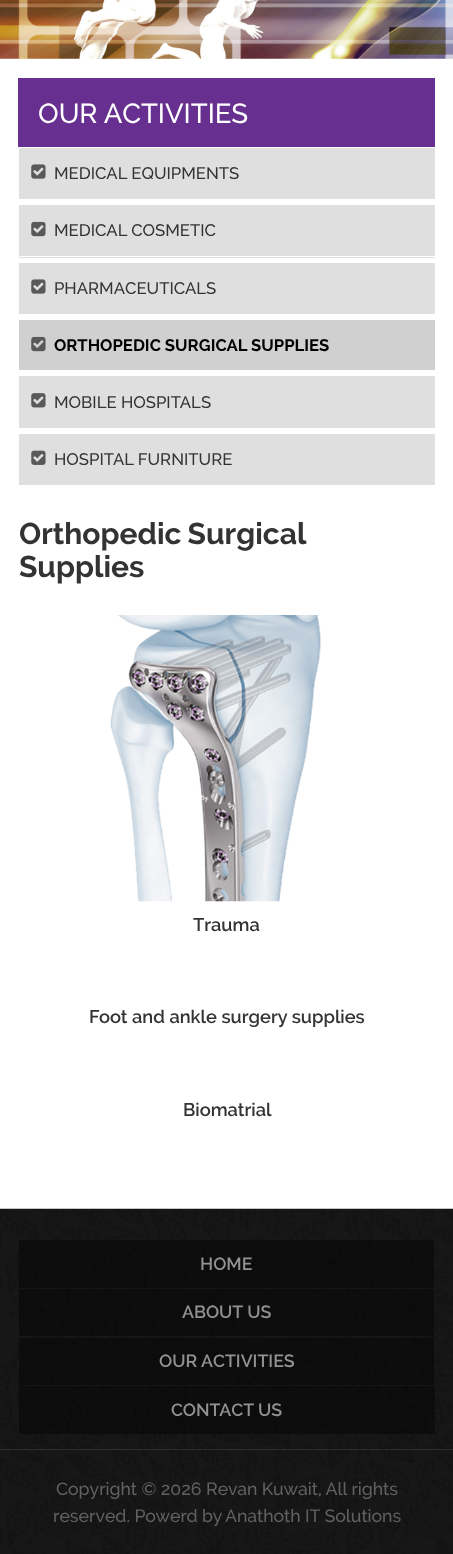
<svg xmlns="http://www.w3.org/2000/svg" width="453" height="1554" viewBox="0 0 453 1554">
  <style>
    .t1 { font: 500 27.5px Raleway; fill: #fff; }
    .t2 { font: 500 16.7px Raleway; fill: #333; }
    .t3 { font: bold 16.7px Raleway; fill: #000; }
    .t4 { font: bold 30px Raleway; fill: #333; }
    .t5 { font: 600 18.3px Raleway; fill: #333; }
    .t6 { font: 600 17.7px Raleway; fill: #939292; }
    .t7 { font: 500 17.7px Raleway; fill: #616161; }
  </style>
  <rect width="100%" height="100%" fill="#fff"/>
  <image x="0" y="0" width="453" height="59" href="images/1.png"/>
  <rect x="18" y="78" width="417" height="69" fill="#673090"/>
  <text x="38" y="123" class="t1">OUR ACTIVITIES</text>
  <rect x="19" y="148" width="416" height="51" fill="#e0dfdf"/>
  <image x="31" y="164" width="15" height="15" href="images/2.png"/>
  <text x="54" y="179" class="t2">MEDICAL EQUIPMENTS</text>
  <rect x="19" y="205" width="416" height="53" fill="#e0dfdf"/>
  <rect x="19" y="256" width="416" height="1" fill="#fff"/>
  <image x="31" y="221" width="15" height="16" href="images/3.png"/>
  <text x="54" y="236" class="t2">MEDICAL COSMETIC</text>
  <rect x="19" y="263" width="416" height="51" fill="#e0dfdf"/>
  <image x="31" y="279" width="15" height="15" href="images/2.png"/>
  <text x="54" y="294" class="t2">PHARMACEUTICALS</text>
  <rect x="19" y="320" width="416" height="50" fill="#d0d0d0"/>
  <image x="31" y="336" width="15" height="16" href="images/4.png"/>
  <text x="54" y="351" class="t3">ORTHOPEDIC SURGICAL SUPPLIES</text>
  <rect x="19" y="376" width="416" height="52" fill="#e0dfdf"/>
  <image x="31" y="393" width="15" height="15" href="images/5.png"/>
  <text x="54" y="408" class="t2">MOBILE HOSPITALS</text>
  <rect x="19" y="434" width="416" height="51" fill="#e0dfdf"/>
  <image x="31" y="450" width="15" height="15" href="images/6.png"/>
  <text x="54" y="465" class="t2">HOSPITAL FURNITURE</text>
  <text x="19" y="544" word-spacing="-1" class="t4">Orthopedic Surgical</text>
  <text x="19" y="577" class="t4">Supplies</text>
  <image x="110" y="615" width="211" height="287" href="images/7.png"/>
  <text x="193" y="931" class="t5">Trauma</text>
  <text x="89" y="1023" class="t5">Foot and ankle surgery supplies</text>
  <text x="183" y="1116" class="t5">Biomatrial</text>
  <image x="0" y="1208" width="453" height="346" href="images/8.png"/>
  <rect x="19" y="1240" width="415" height="48" fill="#00000066"/>
  <text x="200" y="1270" class="t6">HOME</text>
  <rect x="19" y="1289" width="415" height="47" fill="#00000066"/>
  <text x="182" y="1318" class="t6">ABOUT US</text>
  <rect x="19" y="1338" width="415" height="47" fill="#00000066"/>
  <text x="159" y="1367" class="t6">OUR ACTIVITIES</text>
  <rect x="19" y="1386" width="416" height="48" fill="#00000066"/>
  <text x="171" y="1416" class="t6">CONTACT US</text>
  <rect x="0" y="1449" width="453" height="1" fill="#ffffff1a"/>
  <text x="56" y="1495" class="t7">Copyright © 2026 Revan Kuwait, All rights</text>
  <text x="53" y="1522" class="t7">reserved. Powerd by</text>
  <text x="225" y="1522" class="t7">Anathoth IT Solutions</text>
</svg>
